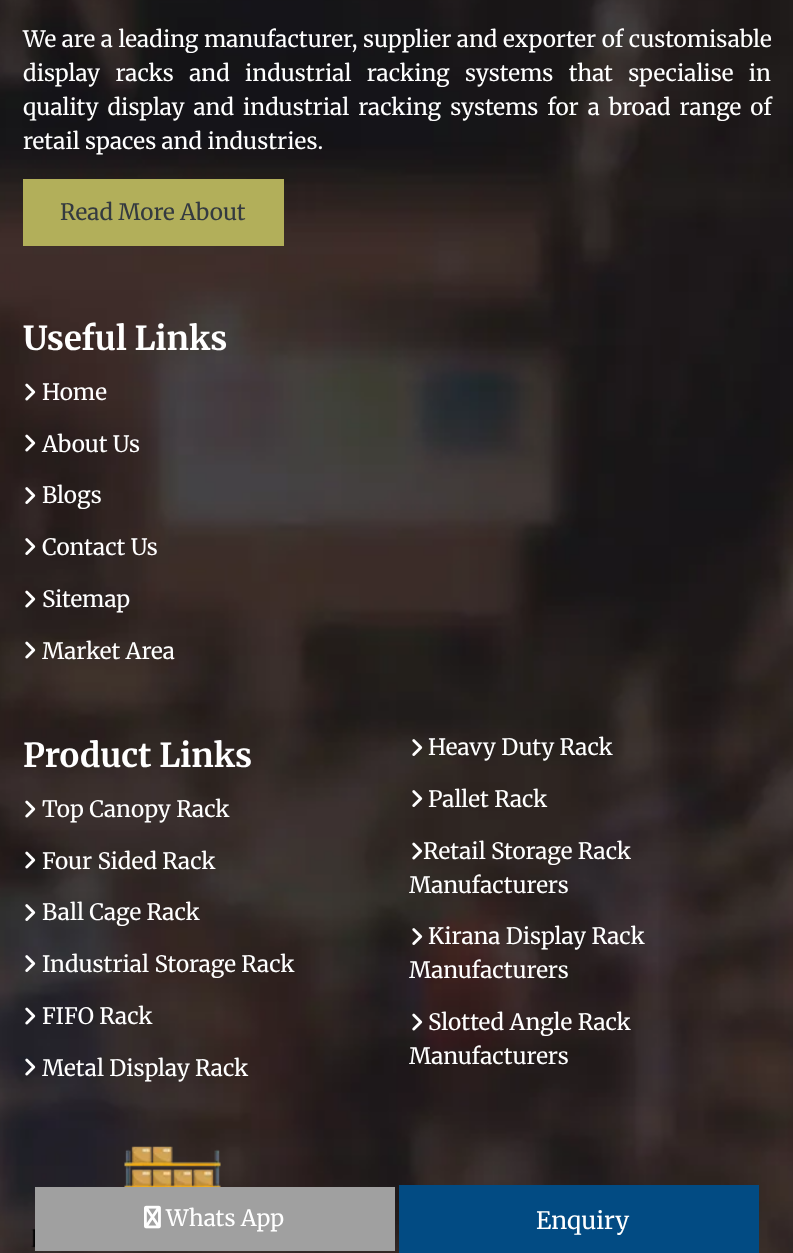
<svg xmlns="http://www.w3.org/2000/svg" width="793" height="1253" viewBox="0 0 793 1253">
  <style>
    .t1 { font: 22.5px Merriweather; fill: #fff; }
    .t2 { font: 22.5px Merriweather; fill: #343a40; }
    .t3 { font: bold 33px Merriweather; fill: #fff; }
    .t4 { font: 24px Merriweather; fill: #fff; }
  </style>
  <rect width="100%" height="100%" fill="#fff"/>
  <image x="0" y="0" width="793" height="1253" href="images/1.png"/>
  <text x="23" y="47" word-spacing="0.25" class="t1">We are a leading manufacturer, supplier and exporter of customisable</text>
  <text x="23" y="81" word-spacing="10" class="t1">display racks and industrial racking systems that specialise in</text>
  <text x="23" y="115" word-spacing="3.6" class="t1">quality display and industrial racking systems for a broad range of</text>
  <text x="23" y="149" class="t1">retail spaces and industries.</text>
  <rect x="23" y="179" width="261" height="67" fill="#b2af5a"/>
  <text x="60" y="220" class="t2">Read More About</text>
  <text x="23" y="350" class="t3">Useful Links</text>
  <image x="25" y="383" width="11" height="18" href="images/2.png"/>
  <text x="42" y="400" class="t1">Home</text>
  <image x="25" y="434" width="11" height="18" href="images/3.png"/>
  <text x="42" y="452" class="t1">About Us</text>
  <image x="25" y="487" width="11" height="17" href="images/4.png"/>
  <text x="42" y="503" class="t1">Blogs</text>
  <image x="25" y="538" width="11" height="17" href="images/5.png"/>
  <text x="42" y="555" class="t1">Contact Us</text>
  <image x="25" y="590" width="11" height="18" href="images/6.png"/>
  <text x="42" y="607" class="t1">Sitemap</text>
  <image x="25" y="641" width="11" height="18" href="images/7.png"/>
  <text x="42" y="659" class="t1">Market Area</text>
  <image x="412" y="739" width="11" height="17" href="images/8.png"/>
  <text x="428" y="755" class="t1">Heavy Duty Rack</text>
  <image x="25" y="800" width="11" height="18" href="images/9.png"/>
  <text x="42" y="817" class="t1">Top Canopy Rack</text>
  <image x="412" y="790" width="11" height="17" href="images/10.png"/>
  <text x="428" y="807" class="t1">Pallet Rack</text>
  <image x="25" y="851" width="11" height="18" href="images/11.png"/>
  <text x="42" y="869" class="t1">Four Sided Rack</text>
  <image x="412" y="842" width="11" height="18" href="images/12.png"/>
  <text x="423" y="859" class="t1">Retail Storage Rack</text>
  <text x="409" y="893" class="t1">Manufacturers</text>
  <image x="25" y="904" width="11" height="17" href="images/13.png"/>
  <text x="42" y="920" class="t1">Ball Cage Rack</text>
  <image x="25" y="955" width="11" height="17" href="images/14.png"/>
  <text x="42" y="972" class="t1">Industrial Storage Rack</text>
  <image x="412" y="928" width="11" height="17" href="images/15.png"/>
  <text x="428" y="944" class="t1">Kirana Display Rack</text>
  <text x="409" y="978" class="t1">Manufacturers</text>
  <image x="25" y="1007" width="11" height="18" href="images/16.png"/>
  <text x="42" y="1024" class="t1">FIFO Rack</text>
  <image x="412" y="1013" width="11" height="18" href="images/17.png"/>
  <text x="428" y="1030" class="t1">Slotted Angle Rack</text>
  <text x="409" y="1064" class="t1">Manufacturers</text>
  <image x="25" y="1058" width="11" height="18" href="images/18.png"/>
  <text x="42" y="1076" class="t1">Metal Display Rack</text>
  <text x="23" y="767" class="t3">Product Links</text>
  <image x="31" y="1146" width="190" height="102" href="images/19.png"/>
  <rect x="35" y="1187" width="360" height="64" fill="#a0a0a0"/>
  <image x="144" y="1205" width="17" height="24" href="images/20.png"/>
  <text x="166" y="1226" class="t1">Whats App</text>
  <rect x="399" y="1185" width="360" height="68" fill="#024b83"/>
  <text x="536" y="1229" class="t4">Enquiry</text>
</svg>
